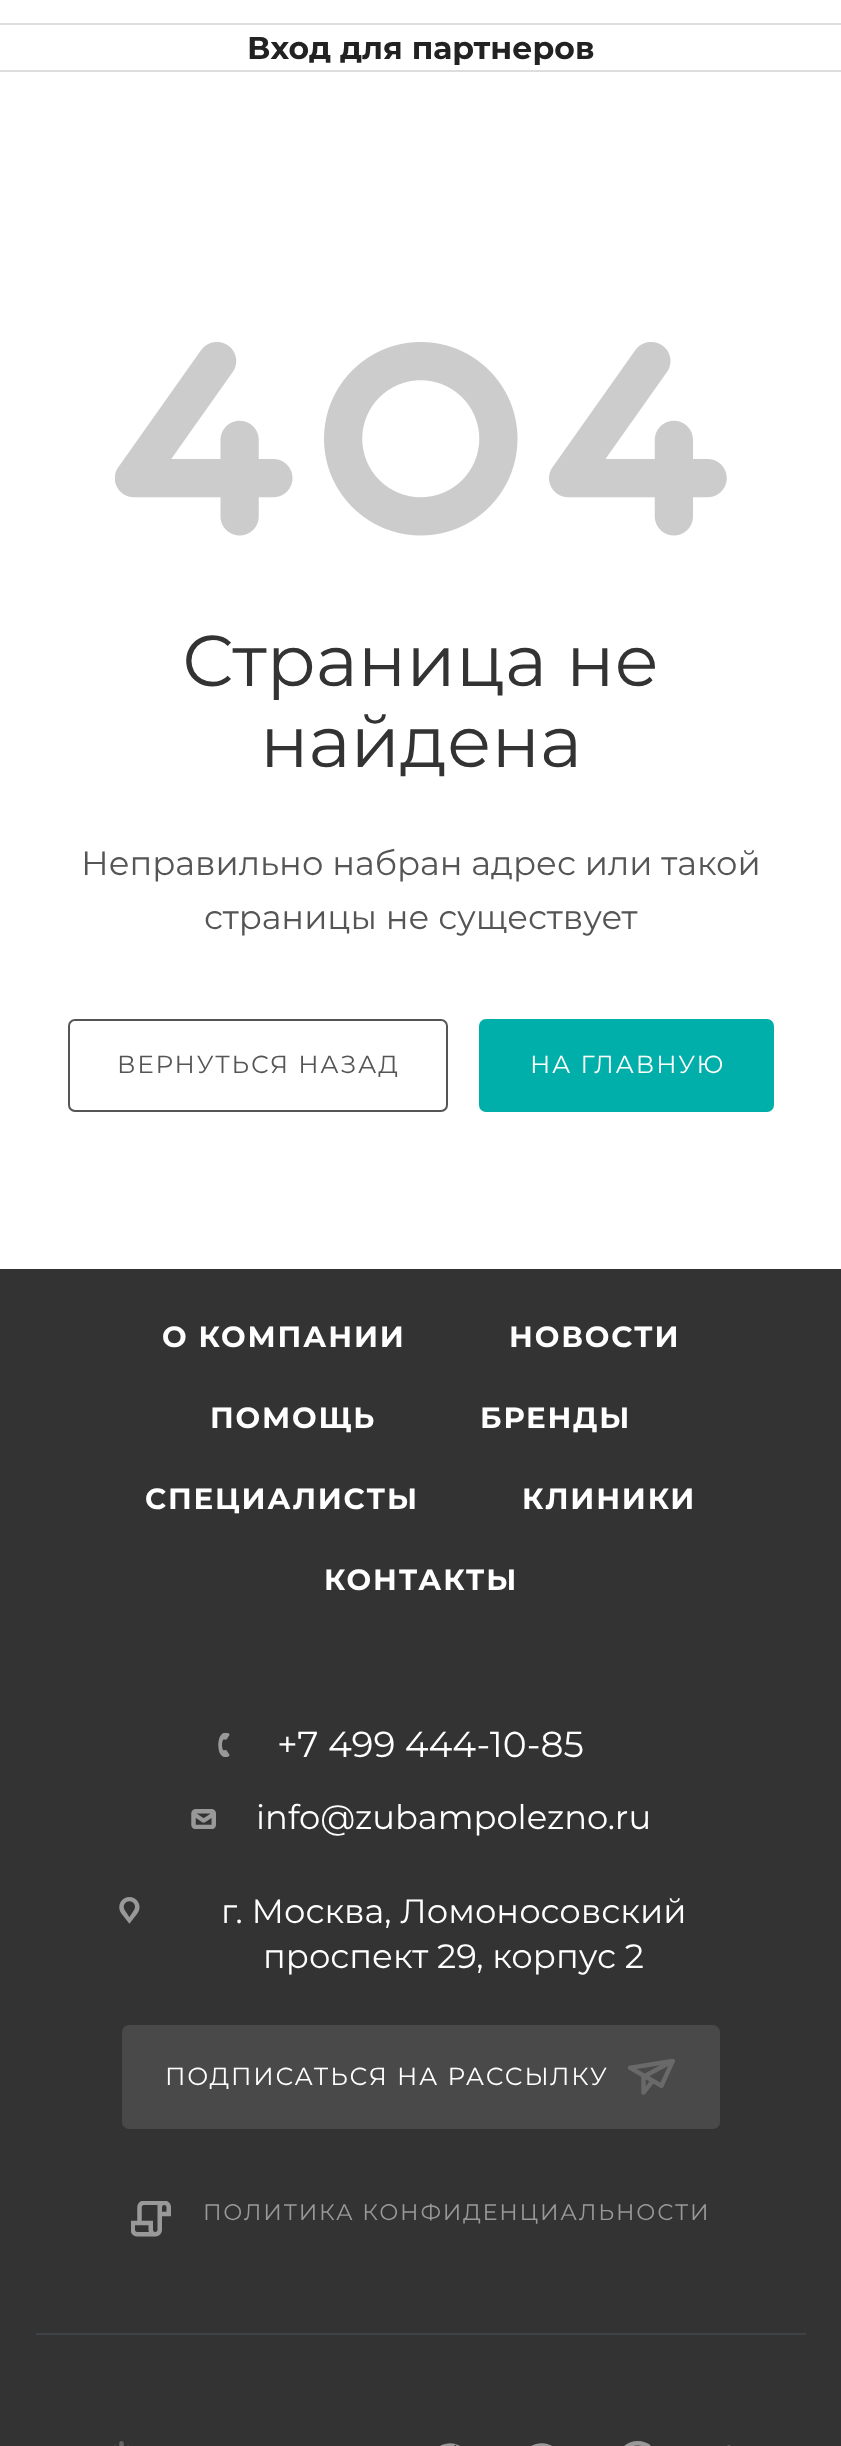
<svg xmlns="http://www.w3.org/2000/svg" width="841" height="2446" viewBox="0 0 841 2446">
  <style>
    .t1 { font: bold 31.5px Montserrat; fill: #222; }
    .t2 { font: 72px Montserrat; fill: #333; }
    .t3 { font: 33.75px Montserrat; fill: #555; }
    .t4 { font: 24.75px Montserrat; letter-spacing: 1.8px; fill: #555; }
    .t5 { font: 24.75px Montserrat; letter-spacing: 1.8px; fill: #fff; }
    .t6 { font: bold 29.25px Montserrat; letter-spacing: 1.8px; fill: #fff; }
    .t7 { font: 36px Montserrat; fill: #fff; }
    .t8 { font: 33.75px Montserrat; fill: #fff; }
    .t9 { font: 22.5px Montserrat; letter-spacing: 1.8px; fill: #999; }
  </style>
  <rect width="100%" height="100%" fill="#fff"/>
  <rect x="0" y="23" width="841" height="2" fill="#ddd"/>
  <rect x="0" y="70" width="841" height="2" fill="#ddd"/>
  <text x="247" y="59" class="t1">Вход для партнеров</text>
  <image x="115" y="342" width="612" height="194" href="images/1.png"/>
  <text x="182" y="686" class="t2">Страница не</text>
  <text x="260" y="767" class="t2">найдена</text>
  <text x="81" y="875" class="t3">Неправильно набран адрес или такой</text>
  <text x="204" y="929" class="t3">страницы не существует</text>
  <rect x="69" y="1020" width="378" height="91" rx="6" fill="none" stroke="#555" stroke-width="2"/>
  <text x="117" y="1073" class="t4">ВЕРНУТЬСЯ НАЗАД</text>
  <rect x="480" y="1020" width="293" height="91" rx="6" fill="#00afa9" stroke="#00afa9" stroke-width="2"/>
  <text x="530" y="1073" class="t5">НА ГЛАВНУЮ</text>
  <rect x="0" y="1269" width="841" height="1177" fill="#333"/>
  <text x="162" y="1347" class="t6">О КОМПАНИИ</text>
  <text x="509" y="1347" class="t6">НОВОСТИ</text>
  <text x="210" y="1428" class="t6">ПОМОЩЬ</text>
  <text x="480" y="1428" class="t6">БРЕНДЫ</text>
  <text x="145" y="1509" class="t6">СПЕЦИАЛИСТЫ</text>
  <text x="522" y="1509" class="t6">КЛИНИКИ</text>
  <text x="324" y="1590" class="t6">КОНТАКТЫ</text>
  <image x="218" y="1733" width="12" height="24" href="images/2.png"/>
  <text x="277" y="1757" class="t7">+7 499 444-10-85</text>
  <image x="191" y="1809" width="25" height="20" href="images/3.png"/>
  <text x="256" y="1829" class="t8">info@zubampolezno.ru</text>
  <image x="119" y="1897" width="21" height="27" href="images/4.png"/>
  <text x="221" y="1923" class="t8">г. Москва, Ломоносовский</text>
  <text x="263" y="1968" class="t8">проспект 29, корпус 2</text>
  <rect x="123" y="2026" width="596" height="102" rx="6" fill="#494949" stroke="#494949" stroke-width="2"/>
  <text x="165" y="2085" class="t5">ПОДПИСАТЬСЯ НА РАССЫЛКУ</text>
  <image x="628" y="2059" width="47" height="36" href="images/5.png"/>
  <image x="131" y="2201" width="40" height="36" href="images/6.png"/>
  <text x="203" y="2220" class="t9">ПОЛИТИКА КОНФИДЕНЦИАЛЬНОСТИ</text>
  <rect x="36" y="2333" width="770" height="2" fill="#3e4146"/>
  <image x="114" y="2441" width="15" height="5" href="images/7.png"/>
  <image x="440" y="2443" width="20" height="3" href="images/8.png"/>
  <image x="531" y="2443" width="21" height="3" href="images/9.png"/>
  <image x="624" y="2441" width="27" height="5" href="images/10.png"/>
  <image x="727" y="2445" width="4" height="1" href="images/11.png"/>
</svg>
